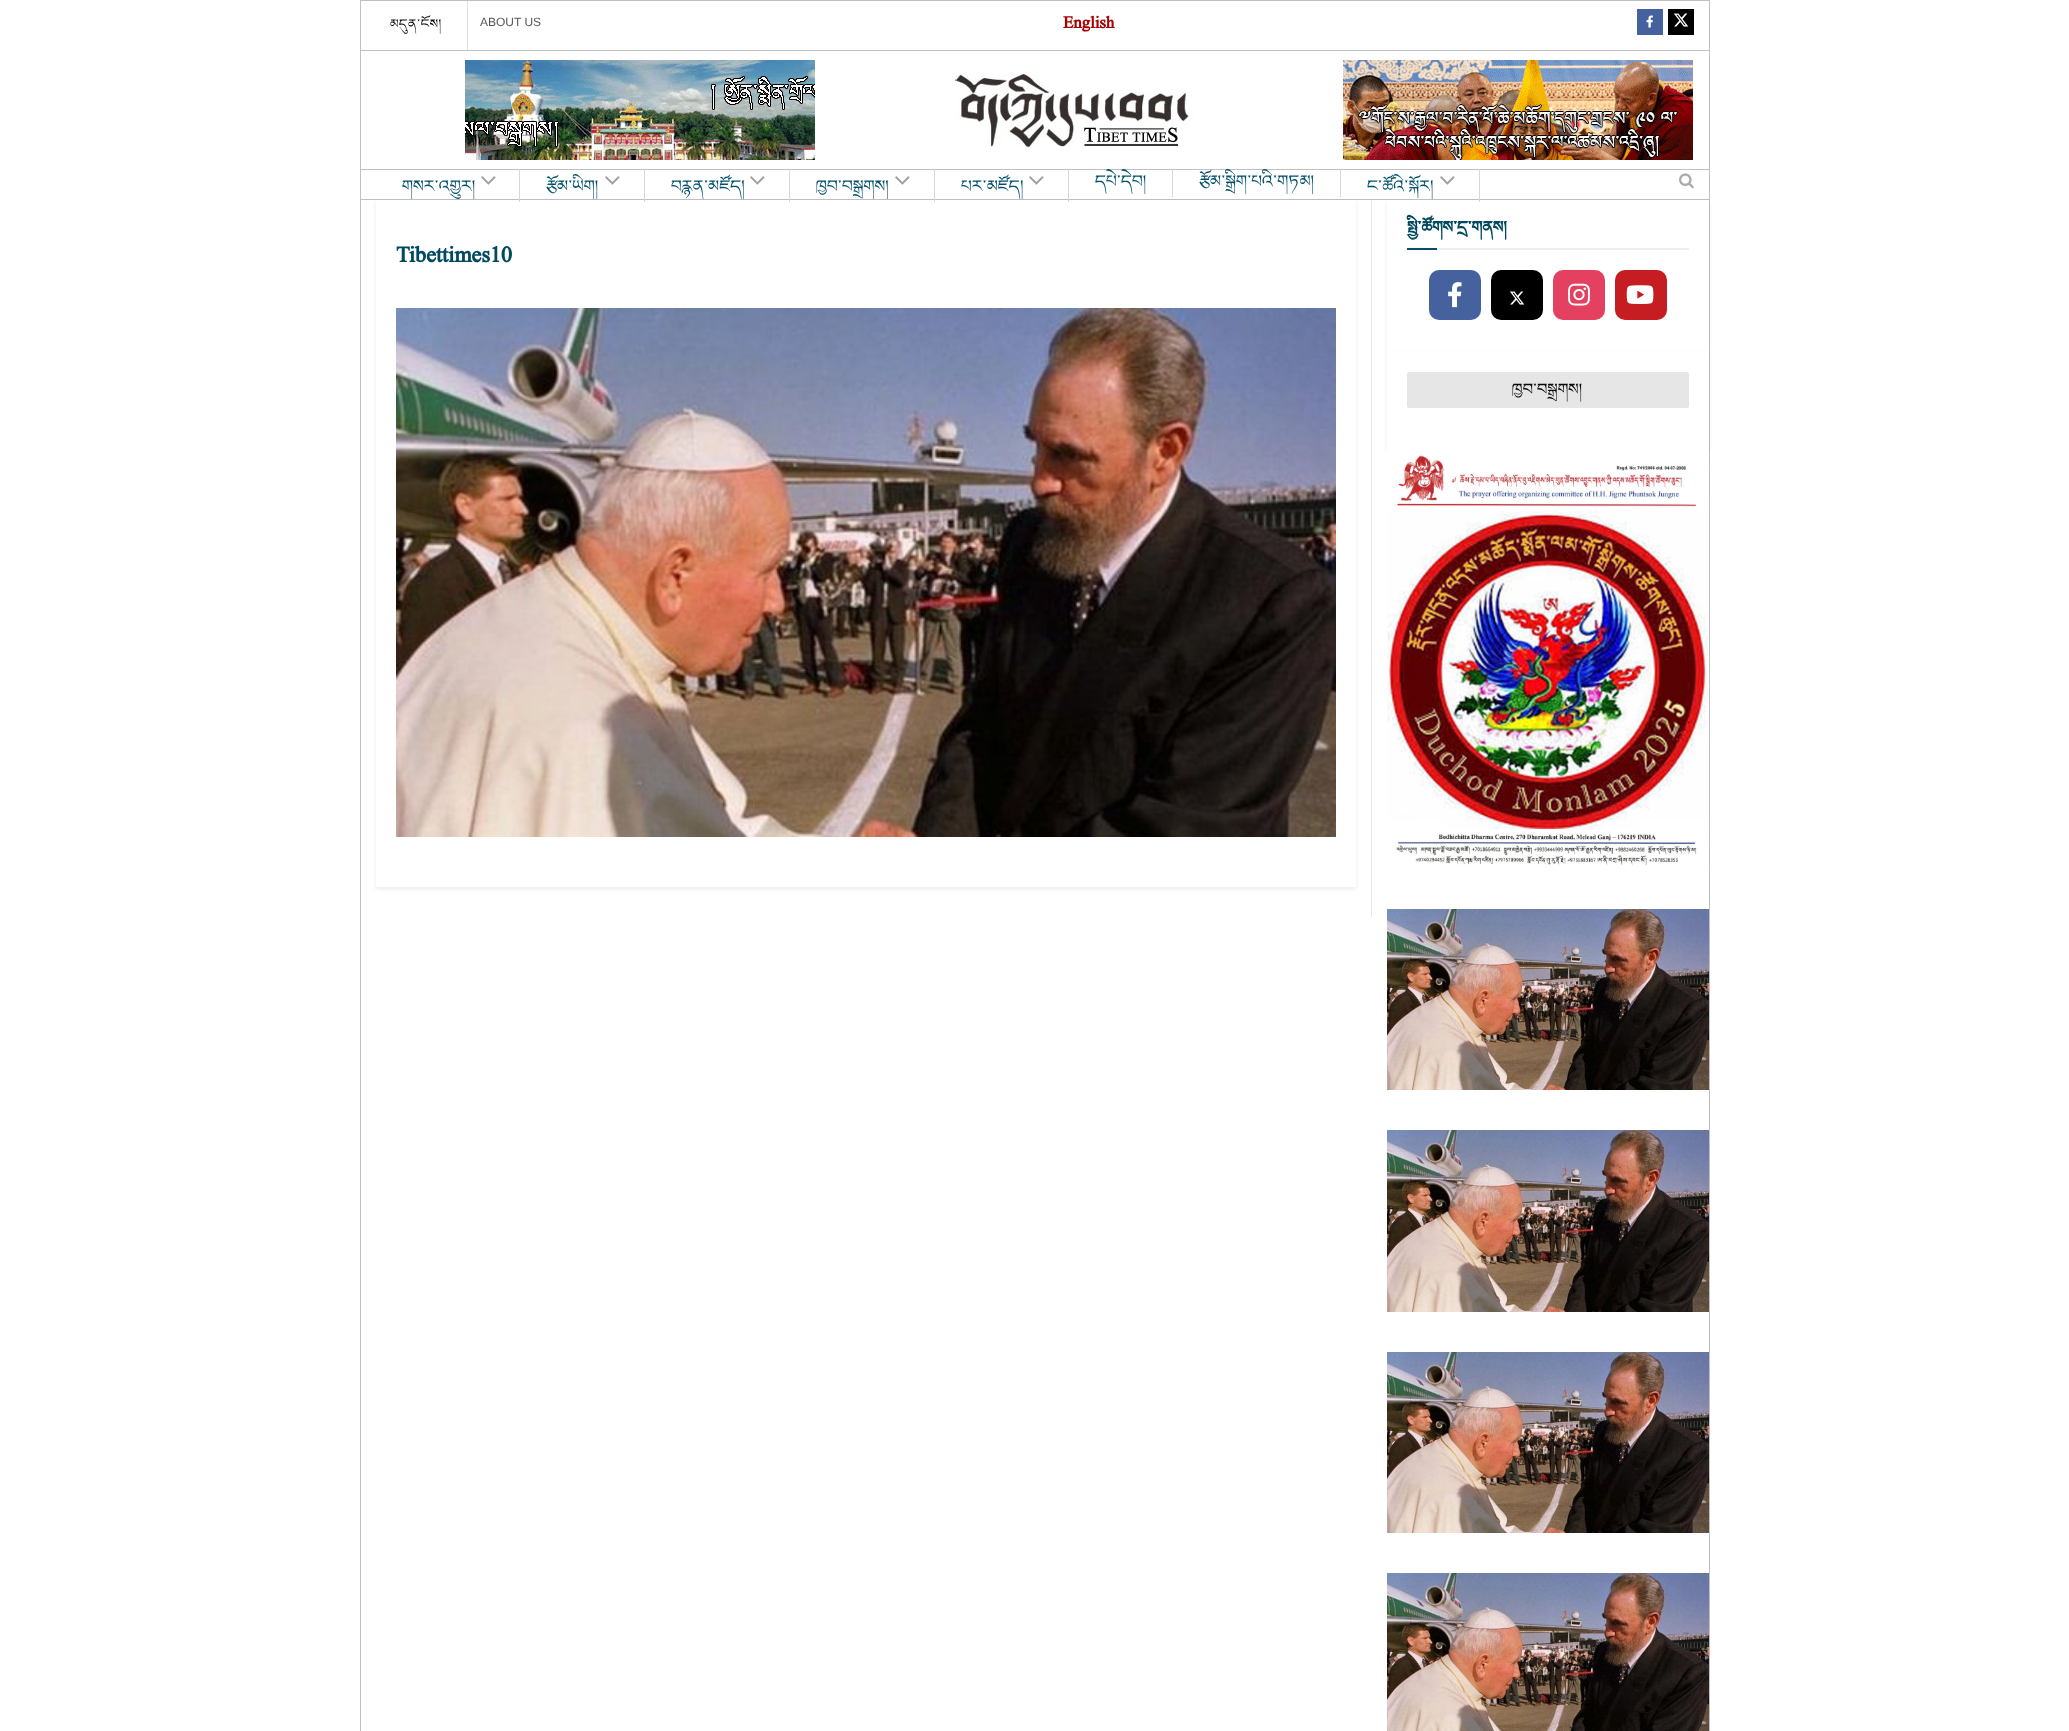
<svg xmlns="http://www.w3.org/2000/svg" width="2069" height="1731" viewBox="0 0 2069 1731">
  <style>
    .t1 { font: 20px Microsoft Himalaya; letter-spacing: 0.5px; fill: #000; }
    .t2 { font: 12px Liberation Sans; fill: #595959; }
    .t3 { font: bold 25px Microsoft Himalaya; fill: #a60202; }
    .t4 { font: 26px Microsoft Himalaya; fill: #024f69; }
    .t5 { font: bold 33px Microsoft Himalaya; fill: #00495e; }
    .t6 { font: bold 25px Microsoft Himalaya; fill: #00495e; }
    .t7 { font: 25px Microsoft Himalaya; fill: #090909; }
  </style>
  <defs>
    <clipPath id="clip1"><path d="M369 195H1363V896H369ZM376 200H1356V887H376Z" clip-rule="evenodd"/></clipPath>
    <clipPath id="clip2"><path d="M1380 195H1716V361H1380ZM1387 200H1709V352H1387Z" clip-rule="evenodd"/></clipPath>
  </defs>
  <rect width="100%" height="100%" fill="#fff"/>
  <rect x="360" y="0" width="1350" height="1" fill="#c0c0c0"/>
  <rect x="1709" y="0" width="1" height="50" fill="#c0c0c0"/>
  <rect x="360" y="0" width="1" height="50" fill="#c0c0c0"/>
  <rect x="467" y="1" width="1" height="49" fill="#e0e0e0"/>
  <text x="390" y="26" class="t1">མདུན་ངོས།</text>
  <text x="480" y="26" class="t2">ABOUT US</text>
  <text x="1063" y="28" class="t3">English</text>
  <rect x="1637" y="9" width="26" height="26" fill="#45629f"/>
  <image x="1646" y="15" width="7" height="13" href="images/1.png"/>
  <rect x="1668" y="9" width="26" height="26" fill="#000"/>
  <image x="1674" y="13" width="15" height="14" href="images/2.png"/>
  <rect x="360" y="169" width="1350" height="1" fill="#c0c0c0"/>
  <rect x="360.5" y="199.5" width="1349" height="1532" fill="none" stroke="#c0c0c0"/>
  <g clip-path="url(#clip1)">
    <rect x="376" y="202" width="980" height="687" fill="#00000014" filter="blur(2px)"/>
  </g>
  <rect x="519" y="167" width="1" height="35" fill="#d8d8d8"/>
  <rect x="644" y="167" width="1" height="35" fill="#d8d8d8"/>
  <rect x="789" y="167" width="1" height="35" fill="#d8d8d8"/>
  <rect x="934" y="167" width="1" height="35" fill="#d8d8d8"/>
  <rect x="1068" y="167" width="1" height="35" fill="#d8d8d8"/>
  <rect x="1172" y="167" width="1" height="30" fill="#d8d8d8"/>
  <rect x="1340" y="167" width="1" height="30" fill="#d8d8d8"/>
  <g clip-path="url(#clip2)">
    <rect x="1387" y="202" width="322" height="152" fill="#00000014" filter="blur(2px)"/>
  </g>
  <rect x="1479" y="167" width="1" height="35" fill="#d8d8d8"/>
  <rect x="519" y="167" width="961" height="2" fill="#fff"/>
  <rect x="360" y="50" width="1350" height="1" fill="#c0c0c0"/>
  <rect x="1709" y="50" width="1" height="119" fill="#c0c0c0"/>
  <rect x="360" y="50" width="1" height="119" fill="#c0c0c0"/>
  <image x="465" y="60" width="350" height="100" href="images/3.png"/>
  <image x="954" y="74" width="240" height="73" href="images/4.png"/>
  <image x="1343" y="60" width="350" height="100" href="images/5.png"/>
  <rect x="1709" y="169" width="1" height="30" fill="#c0c0c0"/>
  <rect x="360" y="169" width="1" height="30" fill="#c0c0c0"/>
  <text x="402" y="189" class="t4">གསར་འགྱུར།</text>
  <image x="481" y="176" width="15" height="9" href="images/6.png"/>
  <text x="546" y="189" class="t4">རྩོམ་ཡིག།</text>
  <image x="605" y="176" width="15" height="9" href="images/6.png"/>
  <text x="671" y="189" class="t4">བརྙན་མཛོད།</text>
  <image x="750" y="176" width="15" height="9" href="images/6.png"/>
  <text x="816" y="189" class="t4">ཁྱབ་བསྒྲགས།</text>
  <image x="895" y="176" width="15" height="9" href="images/6.png"/>
  <text x="961" y="189" class="t4">པར་མཛོད།</text>
  <image x="1029" y="176" width="15" height="9" href="images/6.png"/>
  <text x="1095" y="184" class="t4">དཔེ་དེབ།</text>
  <text x="1199" y="184" class="t4">རྩོམ་སྒྲིག་པའི་གཏམ།</text>
  <text x="1367" y="189" class="t4">ང་ཚོའི་སྐོར།</text>
  <image x="1440" y="176" width="15" height="9" href="images/6.png"/>
  <image x="1679" y="173" width="15" height="16" href="images/7.png"/>
  <rect x="1371" y="200" width="1" height="717" fill="#e8e8e8"/>
  <text x="396" y="262" class="t5">Tibettimes10</text>
  <image x="396" y="308" width="940" height="529" href="images/8.png"/>
  <rect x="1437" y="248" width="252" height="2" fill="#eee"/>
  <text x="1407" y="230" class="t6">སྤྱི་ཚོགས་དྲ་གནས།</text>
  <rect x="1407" y="248" width="30" height="2" fill="#024f69"/>
  <rect x="1429" y="270" width="52" height="50" rx="10" fill="#45629f"/>
  <image x="1448" y="282" width="14" height="26" href="images/9.png"/>
  <rect x="1491" y="270" width="52" height="50" rx="10" fill="#000"/>
  <image x="1510" y="291" width="15" height="14" href="images/2.png"/>
  <rect x="1553" y="270" width="52" height="50" rx="10" fill="#e4405f"/>
  <image x="1568" y="283" width="22" height="23" href="images/10.png"/>
  <rect x="1615" y="270" width="52" height="50" rx="10" fill="#c61d23"/>
  <image x="1626" y="285" width="28" height="19" href="images/11.png"/>
  <rect x="1387" y="354" width="322" height="96" fill="#00000014" filter="blur(2px)"/>
  <rect x="1387" y="352" width="322" height="96" fill="#fff"/>
  <rect x="1407" y="372" width="282" height="36" rx="2" fill="#e6e6e6"/>
  <text x="1512" y="392" class="t7">ཁྱབ་བསྒྲགས།</text>
  <image x="1387" y="448" width="321" height="418" href="images/12.png"/>
  <image x="1387" y="909" width="322" height="181" href="images/13.png"/>
  <image x="1387" y="1130" width="322" height="182" href="images/14.png"/>
  <image x="1387" y="1352" width="322" height="181" href="images/13.png"/>
  <image x="1387" y="1573" width="322" height="158" href="images/15.png"/>
</svg>
